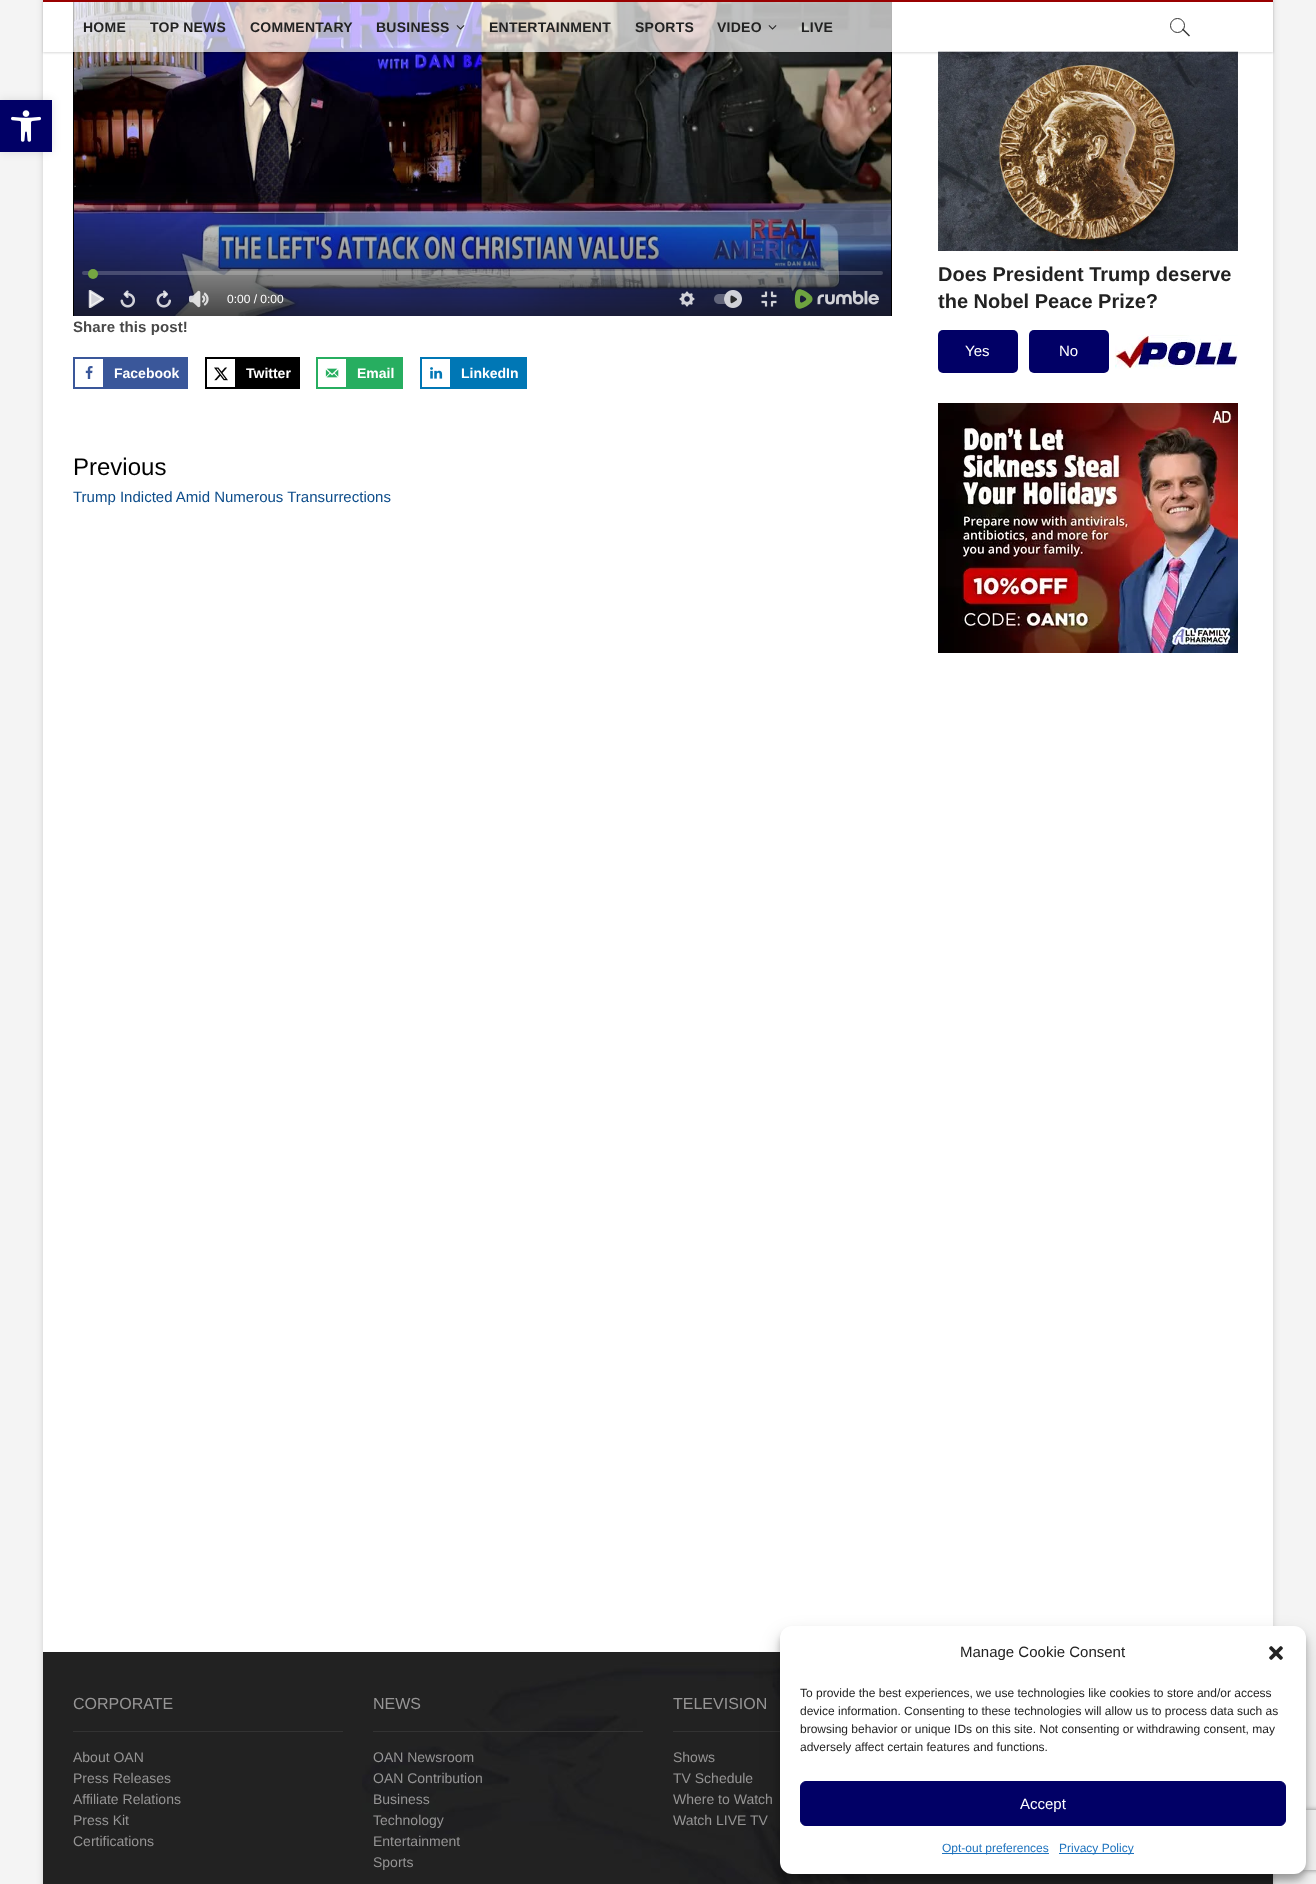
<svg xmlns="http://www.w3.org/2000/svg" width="1316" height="1884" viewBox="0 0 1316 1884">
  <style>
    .t1 { font: bold 14px Liberation Sans; letter-spacing: 0.25px; fill: #222; }
    .t2 { font: 12px Liberation Sans; fill: #fff; }
    .t3 { font: bold 15px Liberation Sans; letter-spacing: 0.1px; fill: #484848; }
    .t4 { font: bold 14px Liberation Sans; fill: #fff; }
    .t5 { font: 24px Liberation Sans; fill: #000; }
    .t6 { font: 15px Liberation Sans; fill: #0c4c8a; }
    .t7 { font: bold 20px Liberation Sans; fill: #222; }
    .t8 { font: 15px Liberation Sans; fill: #fff; }
    .t9 { font: 16px Liberation Sans; fill: #969595; }
    .t10 { font: 14px Liberation Sans; fill: #969595; }
    .t11 { font: 15px Liberation Sans; fill: #222; }
    .t12 { font: 12px Liberation Sans; fill: #222; }
    .t13 { font: 12px Liberation Sans; fill: #1e73be; }
  </style>
  <defs>
    <clipPath id="clip1"><path d="M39 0H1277V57H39ZM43 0H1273V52H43Z" clip-rule="evenodd"/></clipPath>
    <clipPath id="clip2"><rect x="86" y="290" width="18" height="18"/></clipPath>
    <clipPath id="clip3"><path d="M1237 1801H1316V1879H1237ZM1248 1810H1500C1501 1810 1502 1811 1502 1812V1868C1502 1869 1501 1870 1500 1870H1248C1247 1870 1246 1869 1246 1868V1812C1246 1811 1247 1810 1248 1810Z" clip-rule="evenodd"/></clipPath>
  </defs>
  <rect width="100%" height="100%" fill="#f4f4f4"/>
  <rect x="43" y="-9" width="1230" height="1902" fill="#00000026" filter="blur(3px)"/>
  <rect x="43" y="2" width="1230" height="1650" fill="#fff"/>
  <rect x="0" y="100" width="52" height="52" fill="#0000001a" filter="blur(5px)"/>
  <rect x="0" y="100" width="52" height="52" fill="#010066"/>
  <image x="11" y="110" width="30" height="32" href="images/1.png"/>
  <rect x="73" y="2" width="819" height="314" fill="#000"/>
  <image x="74" y="2" width="817" height="314" href="images/4.png"/>
  <image x="938" y="51" width="300" height="200" href="images/16.png"/>
  <g clip-path="url(#clip1)">
    <rect x="43" y="1" width="1230" height="52" fill="#00000026" filter="blur(1px)"/>
  </g>
  <rect x="73" y="2" width="1165" height="50" fill="#ffffffb3"/>
  <rect x="43" y="0" width="1230" height="2" fill="#9a0000"/>
  <text x="83" y="32" class="t1">HOME</text>
  <text x="150" y="32" class="t1">TOP NEWS</text>
  <text x="250" y="32" class="t1">COMMENTARY</text>
  <text x="376" y="32" class="t1">BUSINESS</text>
  <image x="456" y="25" width="9" height="5" href="images/2.png"/>
  <text x="489" y="32" class="t1">ENTERTAINMENT</text>
  <text x="635" y="32" class="t1">SPORTS</text>
  <text x="717" y="32" class="t1">VIDEO</text>
  <image x="768" y="25" width="9" height="5" href="images/3.png"/>
  <text x="801" y="32" class="t1">LIVE</text>
  <circle cx="1177.5" cy="25.5" r="7" fill="none" stroke="#333"/>
  <path d="M1182 29.5L1183 28.5L1190 35.5L1189 36.5Z" fill="#333"/>
  <rect x="82" y="271" width="801" height="4" rx="2" fill="#ffffff33"/>
  <circle cx="93" cy="274" r="5" fill="#75a642"/>
  <path d="M103 299L90 291V307Z" fill="#ffffffcc"/>
  <g clip-path="url(#clip2)">
    <path d="M103 299L90 291V307Z" fill="none" stroke="#ffffffcc" stroke-width="2.5" stroke-linejoin="round"/>
  </g>
  <image x="120" y="290" width="15" height="18" href="images/5.png"/>
  <image x="156" y="290" width="15" height="18" href="images/6.png"/>
  <image x="189" y="290" width="20" height="18" href="images/7.png"/>
  <text x="227" y="303" class="t2">0:00 / 0:00</text>
  <image x="679" y="291" width="16" height="16" href="images/8.png"/>
  <image x="714" y="290" width="28" height="18" href="images/9.png"/>
  <image x="761" y="291" width="16" height="16" href="images/10.png"/>
  <image x="794" y="289" width="85" height="20" href="images/11.png"/>
  <text x="73" y="332" class="t3">Share this post!</text>
  <rect x="105" y="357" width="83" height="32" fill="#3a579a"/>
  <rect x="74" y="358" width="30" height="30" fill="none" stroke="#3a579a" stroke-width="2"/>
  <image x="85" y="366" width="8" height="13" href="images/12.png"/>
  <text x="114" y="378" class="t4">Facebook</text>
  <rect x="237" y="357" width="63" height="32" fill="#000"/>
  <rect x="206" y="358" width="30" height="30" fill="none" stroke="#000" stroke-width="2"/>
  <image x="214" y="367" width="14" height="14" href="images/13.png"/>
  <text x="246" y="378" class="t4">Twitter</text>
  <rect x="348" y="357" width="55" height="32" fill="#27ae60"/>
  <rect x="317" y="358" width="30" height="30" fill="none" stroke="#27ae60" stroke-width="2"/>
  <image x="325" y="368" width="14" height="10" href="images/14.png"/>
  <text x="357" y="378" class="t4">Email</text>
  <rect x="452" y="357" width="75" height="32" fill="#0077b5"/>
  <rect x="421" y="358" width="30" height="30" fill="none" stroke="#0077b5" stroke-width="2"/>
  <image x="430" y="367" width="13" height="12" href="images/15.png"/>
  <text x="461" y="378" class="t4">LinkedIn</text>
  <text x="73" y="475" class="t5">Previous</text>
  <text x="73" y="502" class="t6">Trump Indicted Amid Numerous Transurrections</text>
  <text x="938" y="281" class="t7">Does President Trump deserve</text>
  <text x="938" y="308" class="t7">the Nobel Peace Prize?</text>
  <rect x="938" y="330" width="80" height="43" rx="5" fill="#010066"/>
  <text x="965" y="356" class="t8">Yes</text>
  <rect x="1029" y="330" width="80" height="43" rx="5" fill="#010066"/>
  <text x="1059" y="356" class="t8">No</text>
  <image x="1115" y="335" width="123" height="34" href="images/17.png"/>
  <image x="938" y="403" width="300" height="250" href="images/18.png"/>
  <rect x="43" y="1653" width="1230" height="231" fill="#222"/>
  <image x="362" y="1661" width="574" height="223" href="images/19.png"/>
  <rect x="43" y="1652" width="737" height="1" fill="#202020"/>
  <rect x="73" y="1731" width="270" height="1" fill="#333"/>
  <text x="73" y="1709" class="t9">CORPORATE</text>
  <text x="73" y="1762" class="t10">About OAN</text>
  <text x="73" y="1783" class="t10">Press Releases</text>
  <text x="73" y="1804" class="t10">Affiliate Relations</text>
  <text x="73" y="1825" class="t10">Press Kit</text>
  <text x="73" y="1846" class="t10">Certifications</text>
  <rect x="373" y="1731" width="270" height="1" fill="#333"/>
  <text x="373" y="1709" class="t9">NEWS</text>
  <text x="373" y="1762" class="t10">OAN Newsroom</text>
  <text x="373" y="1783" class="t10">OAN Contribution</text>
  <text x="373" y="1804" class="t10">Business</text>
  <text x="373" y="1825" class="t10">Technology</text>
  <text x="373" y="1846" class="t10">Entertainment</text>
  <text x="373" y="1867" class="t10">Sports</text>
  <rect x="673" y="1731" width="107" height="1" fill="#333"/>
  <text x="673" y="1709" class="t9">TELEVISION</text>
  <text x="673" y="1762" class="t10">Shows</text>
  <text x="673" y="1783" class="t10">TV Schedule</text>
  <text x="673" y="1804" class="t10">Where to Watch</text>
  <text x="673" y="1825" class="t10">Watch LIVE TV</text>
  <rect x="780" y="1632" width="526" height="248" rx="12" fill="#0000003b" filter="blur(3px)"/>
  <rect x="780" y="1636" width="526" height="248" rx="12" fill="#00000030" filter="blur(10px)"/>
  <g clip-path="url(#clip3)">
    <rect x="1246" y="1810" width="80" height="60" rx="2" fill="#808080" filter="blur(2.5px)"/>
  </g>
  <rect x="780" y="1626" width="526" height="248" rx="12" fill="#fff"/>
  <text x="960" y="1657" class="t11">Manage Cookie Consent</text>
  <image x="1269" y="1646" width="14" height="14" href="images/20.png"/>
  <text x="800" y="1697" class="t12">To provide the best experiences, we use technologies like cookies to store and/or access</text>
  <text x="800" y="1715" class="t12">device information. Consenting to these technologies will allow us to process data such as</text>
  <text x="800" y="1733" class="t12">browsing behavior or unique IDs on this site. Not consenting or withdrawing consent, may</text>
  <text x="800" y="1751" class="t12">adversely affect certain features and functions.</text>
  <rect x="800.5" y="1781.5" width="485" height="44" rx="5.5" fill="#010066" stroke="#010066"/>
  <text x="1020" y="1809" class="t8">Accept</text>
  <rect x="942" y="1853" width="107" height="1" fill="#1e73be"/>
  <text x="942" y="1852" class="t13">Opt-out preferences</text>
  <rect x="1059" y="1853" width="75" height="1" fill="#1e73be"/>
  <text x="1059" y="1852" class="t13">Privacy Policy</text>
</svg>
